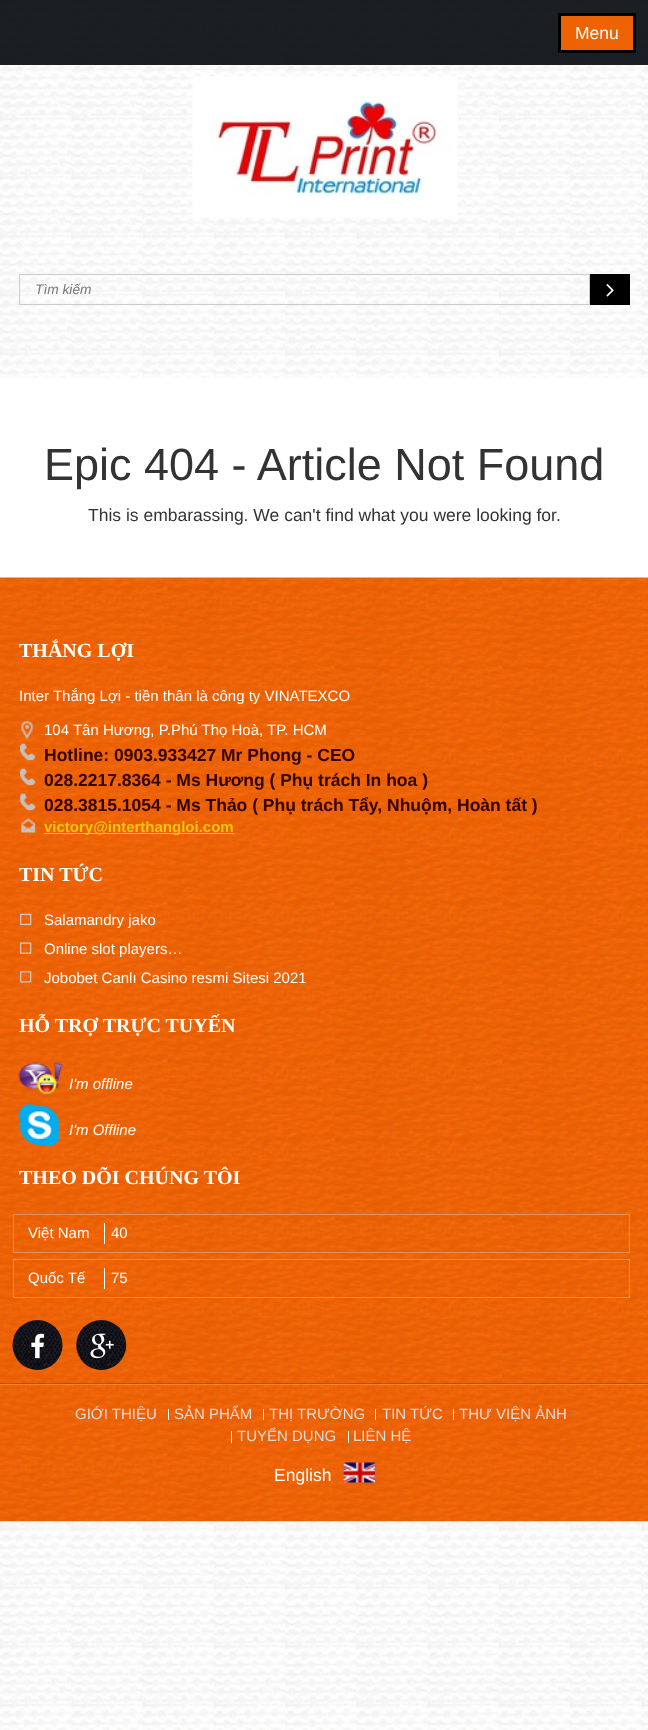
<svg xmlns="http://www.w3.org/2000/svg" width="648" height="1730" viewBox="0 0 648 1730">
  <style>
    .t1 { font: 17.5px Liberation Sans; fill: #fff; }
    .t2 { font: italic 13.75px Liberation Sans; fill: #777; }
    .t3 { font: 45px Liberation Sans; fill: #333; }
    .t4 { font: 17.5px Liberation Sans; fill: #333; }
    .t5 { font: bold 20px Liberation Serif; fill: #fff; }
    .t6 { font: 15px Liberation Sans; fill: #fff; }
    .t7 { font: bold 17.5px Liberation Sans; fill: #300; }
    .t8 { font: bold 15px Liberation Sans; fill: #f1c40f; }
    .t9 { font: italic 15px Liberation Sans; fill: #fff; }
    .t10 { font: 15px Liberation Sans; fill: #ddd; }
  </style>
  <rect width="100%" height="100%" fill="#fff"/>
  <image x="0" y="0" width="648" height="1730" href="images/1.png"/>
  <rect x="0" y="0" width="648" height="65" fill="#02060ae6"/>
  <rect x="559.5" y="14.5" width="75" height="37" fill="#ed6203" stroke="#000" stroke-width="3"/>
  <text x="575" y="39" class="t1">Menu</text>
  <image x="192" y="76" width="266" height="142" href="images/2.png"/>
  <rect x="19.5" y="274.5" width="570" height="30" fill="none" stroke="#ccc"/>
  <text x="35" y="294" class="t2">Tìm kiếm</text>
  <rect x="590" y="274" width="40" height="31" fill="#000"/>
  <image x="606" y="284" width="8" height="13" href="images/3.png"/>
  <rect x="0" y="378" width="648" height="200" fill="#fff"/>
  <text x="44" y="480" class="t3">Epic 404 - Article Not Found</text>
  <text x="88" y="521" class="t4">This is embarassing. We can't find what you were looking for.</text>
  <image x="0" y="577" width="648" height="945" href="images/4.png"/>
  <text x="19" y="657" class="t5">THẮNG LỢI</text>
  <text x="19" y="701" class="t6">Inter Thắng Lợi - tiền thân là công ty VINATEXCO</text>
  <image x="21" y="721" width="12" height="18" href="images/5.png"/>
  <text x="44" y="735" class="t6">104 Tân Hương, P.Phú Thọ Hoà, TP. HCM</text>
  <image x="19" y="743" width="17" height="18" href="images/6.png"/>
  <text x="44" y="761" class="t7">Hotline: 0903.933427 Mr Phong - CEO</text>
  <image x="19" y="768" width="17" height="18" href="images/7.png"/>
  <text x="44" y="786" class="t7">028.2217.8364 - Ms Hương ( Phụ trách In hoa )</text>
  <image x="19" y="793" width="17" height="18" href="images/8.png"/>
  <text x="44" y="811" class="t7">028.3815.1054 - Ms Thảo ( Phụ trách Tẩy, Nhuộm, Hoàn tất )</text>
  <image x="21" y="818" width="15" height="15" href="images/9.png"/>
  <rect x="44" y="833" width="190" height="1" fill="#f1c40f"/>
  <text x="44" y="832" class="t8">victory@interthangloi.com</text>
  <text x="19" y="881" class="t5">TIN TỨC</text>
  <image x="19" y="913" width="13" height="13" href="images/10.png"/>
  <text x="44" y="925" class="t6">Salamandry jako</text>
  <image x="19" y="942" width="13" height="12" href="images/11.png"/>
  <text x="44" y="954" class="t6">Online slot players…</text>
  <image x="19" y="971" width="13" height="12" href="images/12.png"/>
  <text x="44" y="983" class="t6">Jobobet Canlı Casino resmi Sitesi 2021</text>
  <text x="19" y="1032" class="t5">HỖ TRỢ TRỰC TUYẾN</text>
  <image x="18" y="1062" width="45" height="32" href="images/13.png"/>
  <text x="69" y="1089" class="t9">I'm offline</text>
  <image x="18" y="1103" width="41" height="44" href="images/14.png"/>
  <text x="69" y="1135" class="t9">I'm Offline</text>
  <text x="19" y="1184" class="t5">THEO DÕI CHÚNG TÔI</text>
  <rect x="13.5" y="1214.5" width="616" height="38" fill="none" stroke="#de9261"/>
  <rect x="104" y="1223" width="1" height="21" fill="#fff"/>
  <text x="28" y="1238" class="t6">Việt Nam</text>
  <text x="111" y="1238" class="t6">40</text>
  <rect x="13.5" y="1259.5" width="616" height="38" fill="none" stroke="#de9261"/>
  <rect x="104" y="1268" width="1" height="21" fill="#fff"/>
  <text x="28" y="1283" class="t6">Quốc Tế</text>
  <text x="111" y="1283" class="t6">75</text>
  <image x="12" y="1320" width="51" height="50" href="images/15.png"/>
  <image x="31" y="1333" width="14" height="26" href="images/16.png"/>
  <image x="76" y="1320" width="51" height="50" href="images/17.png"/>
  <image x="90" y="1333" width="24" height="26" href="images/18.png"/>
  <rect x="0" y="1383" width="648" height="1" fill="#00000033"/>
  <rect x="0" y="1384" width="648" height="1" fill="#ffffff33"/>
  <text x="75" y="1419" class="t10">GIỚI THIỆU</text>
  <rect x="168" y="1409" width="1" height="11" fill="#fff"/>
  <text x="174" y="1419" class="t10">SẢN PHẨM</text>
  <rect x="263" y="1409" width="1" height="11" fill="#fff"/>
  <text x="269" y="1419" class="t10">THỊ TRƯỜNG</text>
  <rect x="375" y="1409" width="1" height="11" fill="#fff"/>
  <text x="382" y="1419" class="t10">TIN TỨC</text>
  <rect x="453" y="1409" width="1" height="11" fill="#fff"/>
  <text x="459" y="1419" class="t10">THƯ VIỆN ẢNH</text>
  <rect x="231" y="1431" width="1" height="12" fill="#fff"/>
  <text x="237" y="1441" class="t10">TUYỂN DỤNG</text>
  <rect x="348" y="1431" width="1" height="12" fill="#fff"/>
  <text x="353" y="1441" class="t10">LIÊN HỆ</text>
  <text x="274" y="1481" class="t1">English</text>
  <image x="343" y="1462" width="32" height="21" href="images/19.png"/>
</svg>
